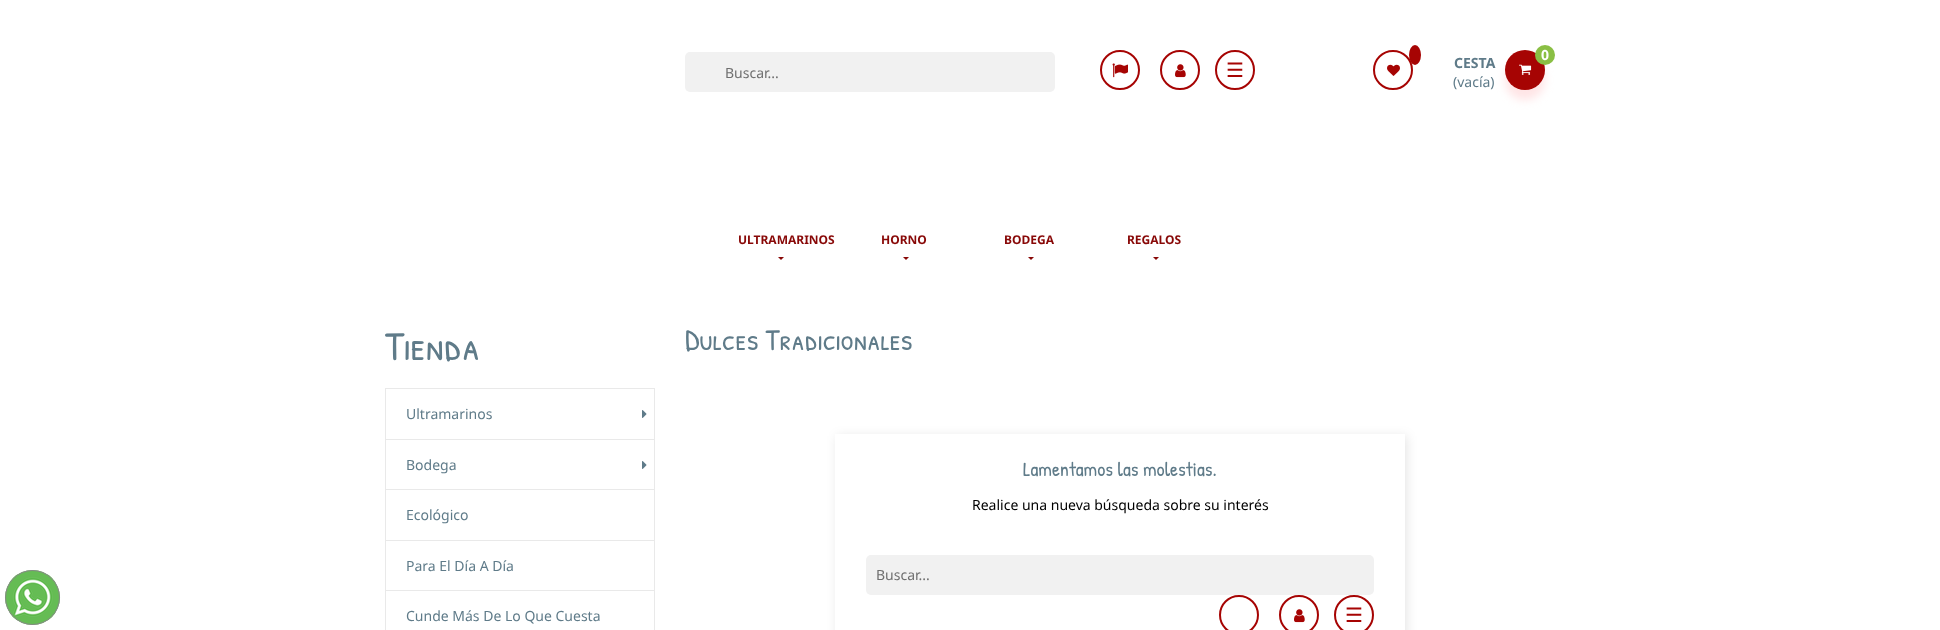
<svg xmlns="http://www.w3.org/2000/svg" width="1940" height="630" viewBox="0 0 1940 630">
  <style>
    .t1 { font: 14px Noto Sans; fill: #6f6f6f; }
    .t2 { font: 20px DejaVu Sans; fill: #a60403; }
    .t3 { font: bold 14px Noto Sans; fill: #fff; }
    .t4 { font: bold 14px Noto Sans; fill: #5f7b89; }
    .t5 { font: 14px Noto Sans; fill: #5f7b89; }
    .t6 { font: bold 12px Noto Sans; fill: #880807; }
    .t7 { font: 41px Patrick Hand SC; fill: #5f7b89; }
    .t8 { font: 30px Patrick Hand SC; fill: #5f7b89; }
    .t9 { font: 20px Patrick Hand; fill: #5f7b89; }
    .t10 { font: 14px Noto Sans; fill: #000; }
  </style>
  <defs>
    <clipPath id="clip1"><path d="M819 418H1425V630H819ZM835 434H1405V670H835Z" clip-rule="evenodd"/></clipPath>
  </defs>
  <rect width="100%" height="100%" fill="#fff"/>
  <rect x="685" y="52" width="370" height="40" rx="5" fill="#f1f1f1"/>
  <text x="725" y="78" class="t1">Buscar...</text>
  <circle cx="1120" cy="70" r="19" fill="none" stroke="#a60403" stroke-width="2"/>
  <image x="1112" y="63" width="16" height="15" href="images/1.png"/>
  <circle cx="1180" cy="70" r="19" fill="none" stroke="#a60403" stroke-width="2"/>
  <image x="1175" y="64" width="11" height="14" href="images/2.png"/>
  <circle cx="1235" cy="70" r="19" fill="none" stroke="#a60403" stroke-width="2"/>
  <text x="1226" y="77" class="t2">☰</text>
  <circle cx="1393" cy="70" r="19" fill="none" stroke="#a60403" stroke-width="2"/>
  <ellipse cx="1415" cy="55" rx="6" ry="10" fill="#a60403"/>
  <image x="1387" y="64" width="13" height="12" href="images/3.png"/>
  <rect x="1505" y="60" width="40" height="40" rx="20" fill="#ffcccd80" filter="blur(4px)"/>
  <circle cx="1525" cy="70" r="20" fill="#a60403"/>
  <image x="1519" y="64" width="13" height="11" href="images/4.png"/>
  <circle cx="1545" cy="55" r="10" fill="#8abf44"/>
  <text x="1541" y="60" class="t3">0</text>
  <text x="1454" y="68" class="t4">CESTA</text>
  <text x="1453" y="87" class="t5">(vacía)</text>
  <text x="738" y="244" class="t6">ULTRAMARINOS</text>
  <path d="M778 257H784L781 260Z" fill="#880807"/>
  <text x="881" y="244" class="t6">HORNO</text>
  <path d="M903 257H909L906 260Z" fill="#880807"/>
  <text x="1004" y="244" class="t6">BODEGA</text>
  <path d="M1028 257H1034L1031 260Z" fill="#880807"/>
  <text x="1127" y="244" class="t6">REGALOS</text>
  <path d="M1153 257H1159L1156 260Z" fill="#880807"/>
  <circle cx="32.5" cy="597.5" r="27.5" fill="#65bc54"/>
  <image x="10" y="575" width="45" height="45" href="images/5.png"/>
  <circle cx="32.5" cy="597.5" r="27" fill="none" stroke="#888"/>
  <text x="385" y="360" class="t7">Tienda</text>
  <rect x="385.5" y="388.5" width="269" height="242" fill="none" stroke="#e9e9e9"/>
  <rect x="386" y="439" width="268" height="1" fill="#e9e9e9"/>
  <text x="406" y="419" class="t5">Ultramarinos</text>
  <image x="642" y="410" width="5" height="8" href="images/6.png"/>
  <rect x="386" y="489" width="268" height="1" fill="#e9e9e9"/>
  <text x="406" y="470" class="t5">Bodega</text>
  <image x="642" y="461" width="5" height="8" href="images/6.png"/>
  <rect x="386" y="540" width="268" height="1" fill="#e9e9e9"/>
  <text x="406" y="520" class="t5">Ecológico</text>
  <rect x="386" y="590" width="268" height="1" fill="#e9e9e9"/>
  <text x="406" y="571" class="t5">Para El Día A Día</text>
  <text x="406" y="621" class="t5">Cunde Más De Lo Que Cuesta</text>
  <text x="685" y="350" class="t8">Dulces Tradicionales</text>
  <g clip-path="url(#clip1)">
    <rect x="837" y="436" width="570" height="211" fill="#0000001a" filter="blur(5.5px)"/>
  </g>
  <text x="1023" y="476" class="t9">Lamentamos las molestias.</text>
  <text x="972" y="510" class="t10">Realice una nueva búsqueda sobre su interés</text>
  <rect x="866" y="555" width="508" height="40" rx="5" fill="#f1f1f1"/>
  <text x="876" y="580" class="t1">Buscar...</text>
  <circle cx="1239" cy="615" r="19" fill="none" stroke="#a60403" stroke-width="2"/>
  <circle cx="1299" cy="615" r="19" fill="none" stroke="#a60403" stroke-width="2"/>
  <image x="1294" y="609" width="11" height="14" href="images/2.png"/>
  <circle cx="1354" cy="615" r="19" fill="none" stroke="#a60403" stroke-width="2"/>
  <text x="1345" y="622" class="t2">☰</text>
</svg>
